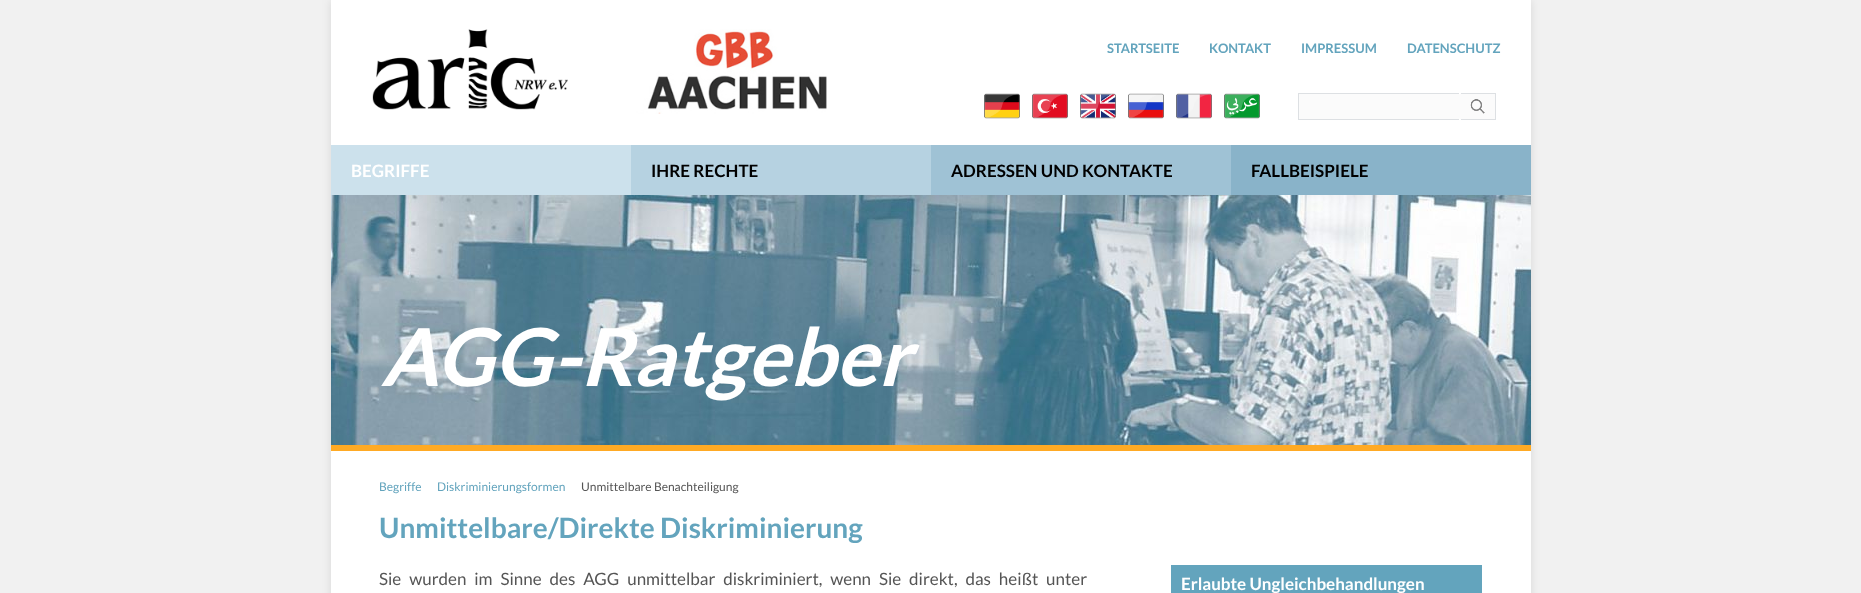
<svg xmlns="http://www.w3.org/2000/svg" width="1861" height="593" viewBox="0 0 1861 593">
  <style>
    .t1 { font: bold 13px Lato; fill: #63a4bd; }
    .t2 { font: bold 17px Lato; fill: #fff; }
    .t3 { font: bold 17px Lato; fill: #000; }
    .t4 { font: italic bold 80px Lato; fill: #fff; }
    .t5 { font: 12px Lato; fill: #63a4bd; }
    .t6 { font: 12px Lato; fill: #555; }
    .t7 { font: bold 28px Lato; fill: #63a4bd; }
    .t8 { font: 17px Lato; fill: #555; }
  </style>
  <rect width="100%" height="100%" fill="#f1f1f1"/>
  <rect x="331" y="0" width="1200" height="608" fill="#0000001a" filter="blur(5px)"/>
  <rect x="331" y="0" width="1200" height="145" fill="#fff"/>
  <image x="372" y="29" width="455" height="85" href="images/1.png"/>
  <text x="1107" y="53" class="t1">STARTSEITE</text>
  <text x="1209" y="53" class="t1">KONTAKT</text>
  <text x="1301" y="53" class="t1">IMPRESSUM</text>
  <text x="1407" y="53" class="t1">DATENSCHUTZ</text>
  <image x="984" y="93" width="36" height="26" href="images/2.png"/>
  <image x="1032" y="93" width="36" height="26" href="images/3.png"/>
  <image x="1080" y="93" width="36" height="26" href="images/4.png"/>
  <image x="1128" y="93" width="36" height="26" href="images/5.png"/>
  <image x="1176" y="93" width="36" height="26" href="images/6.png"/>
  <image x="1224" y="93" width="36" height="26" href="images/7.png"/>
  <rect x="1299" y="94" width="160" height="25" fill="#fbfbfb"/>
  <rect x="1298" y="93" width="161" height="1" fill="#dde0e3"/>
  <rect x="1298" y="119" width="161" height="1" fill="#dde0e3"/>
  <rect x="1298" y="93" width="1" height="27" fill="#dde0e3"/>
  <path d="M1462 93H1496V120H1462C1460.5 120 1459 118.5 1459 117V96C1459 94.5 1460.5 93 1462 93Z" fill="#fbfbfb"/>
  <image x="1470" y="99" width="15" height="15" href="images/8.png"/>
  <rect x="1461" y="93" width="35" height="1" fill="#dde0e3"/>
  <rect x="1495" y="93" width="1" height="27" fill="#dde0e3"/>
  <rect x="1461" y="119" width="35" height="1" fill="#dde0e3"/>
  <rect x="931" y="145" width="300" height="50" fill="#9fc2d5"/>
  <rect x="331" y="145" width="300" height="50" fill="#cce1ec"/>
  <text x="351" y="177" class="t2">BEGRIFFE</text>
  <rect x="631" y="145" width="300" height="50" fill="#b6d2e1"/>
  <text x="651" y="177" class="t3">IHRE RECHTE</text>
  <text x="951" y="177" class="t3">ADRESSEN UND KONTAKTE</text>
  <rect x="1231" y="145" width="300" height="50" fill="#89b3c9"/>
  <text x="1251" y="177" class="t3">FALLBEISPIELE</text>
  <rect x="331" y="445" width="1200" height="6" fill="#ffaa24"/>
  <image x="331" y="195" width="1200" height="250" href="images/9.png"/>
  <text x="381" y="386" class="t4">AGG-Ratgeber</text>
  <rect x="331" y="451" width="1200" height="142" fill="#fff"/>
  <text x="379" y="491" class="t5">Begriffe</text>
  <text x="437" y="491" class="t5">Diskriminierungsformen</text>
  <text x="581" y="491" class="t6">Unmittelbare Benachteiligung</text>
  <text x="379" y="538" class="t7">Unmittelbare/Direkte Diskriminierung</text>
  <text x="379" y="585" word-spacing="4.6" class="t8">Sie wurden im Sinne des AGG unmittelbar diskriminiert, wenn Sie direkt, das heißt unter</text>
  <rect x="1171" y="565" width="311" height="28" fill="#63a4bd"/>
  <text x="1181" y="590" class="t2">Erlaubte Ungleichbehandlungen</text>
</svg>
